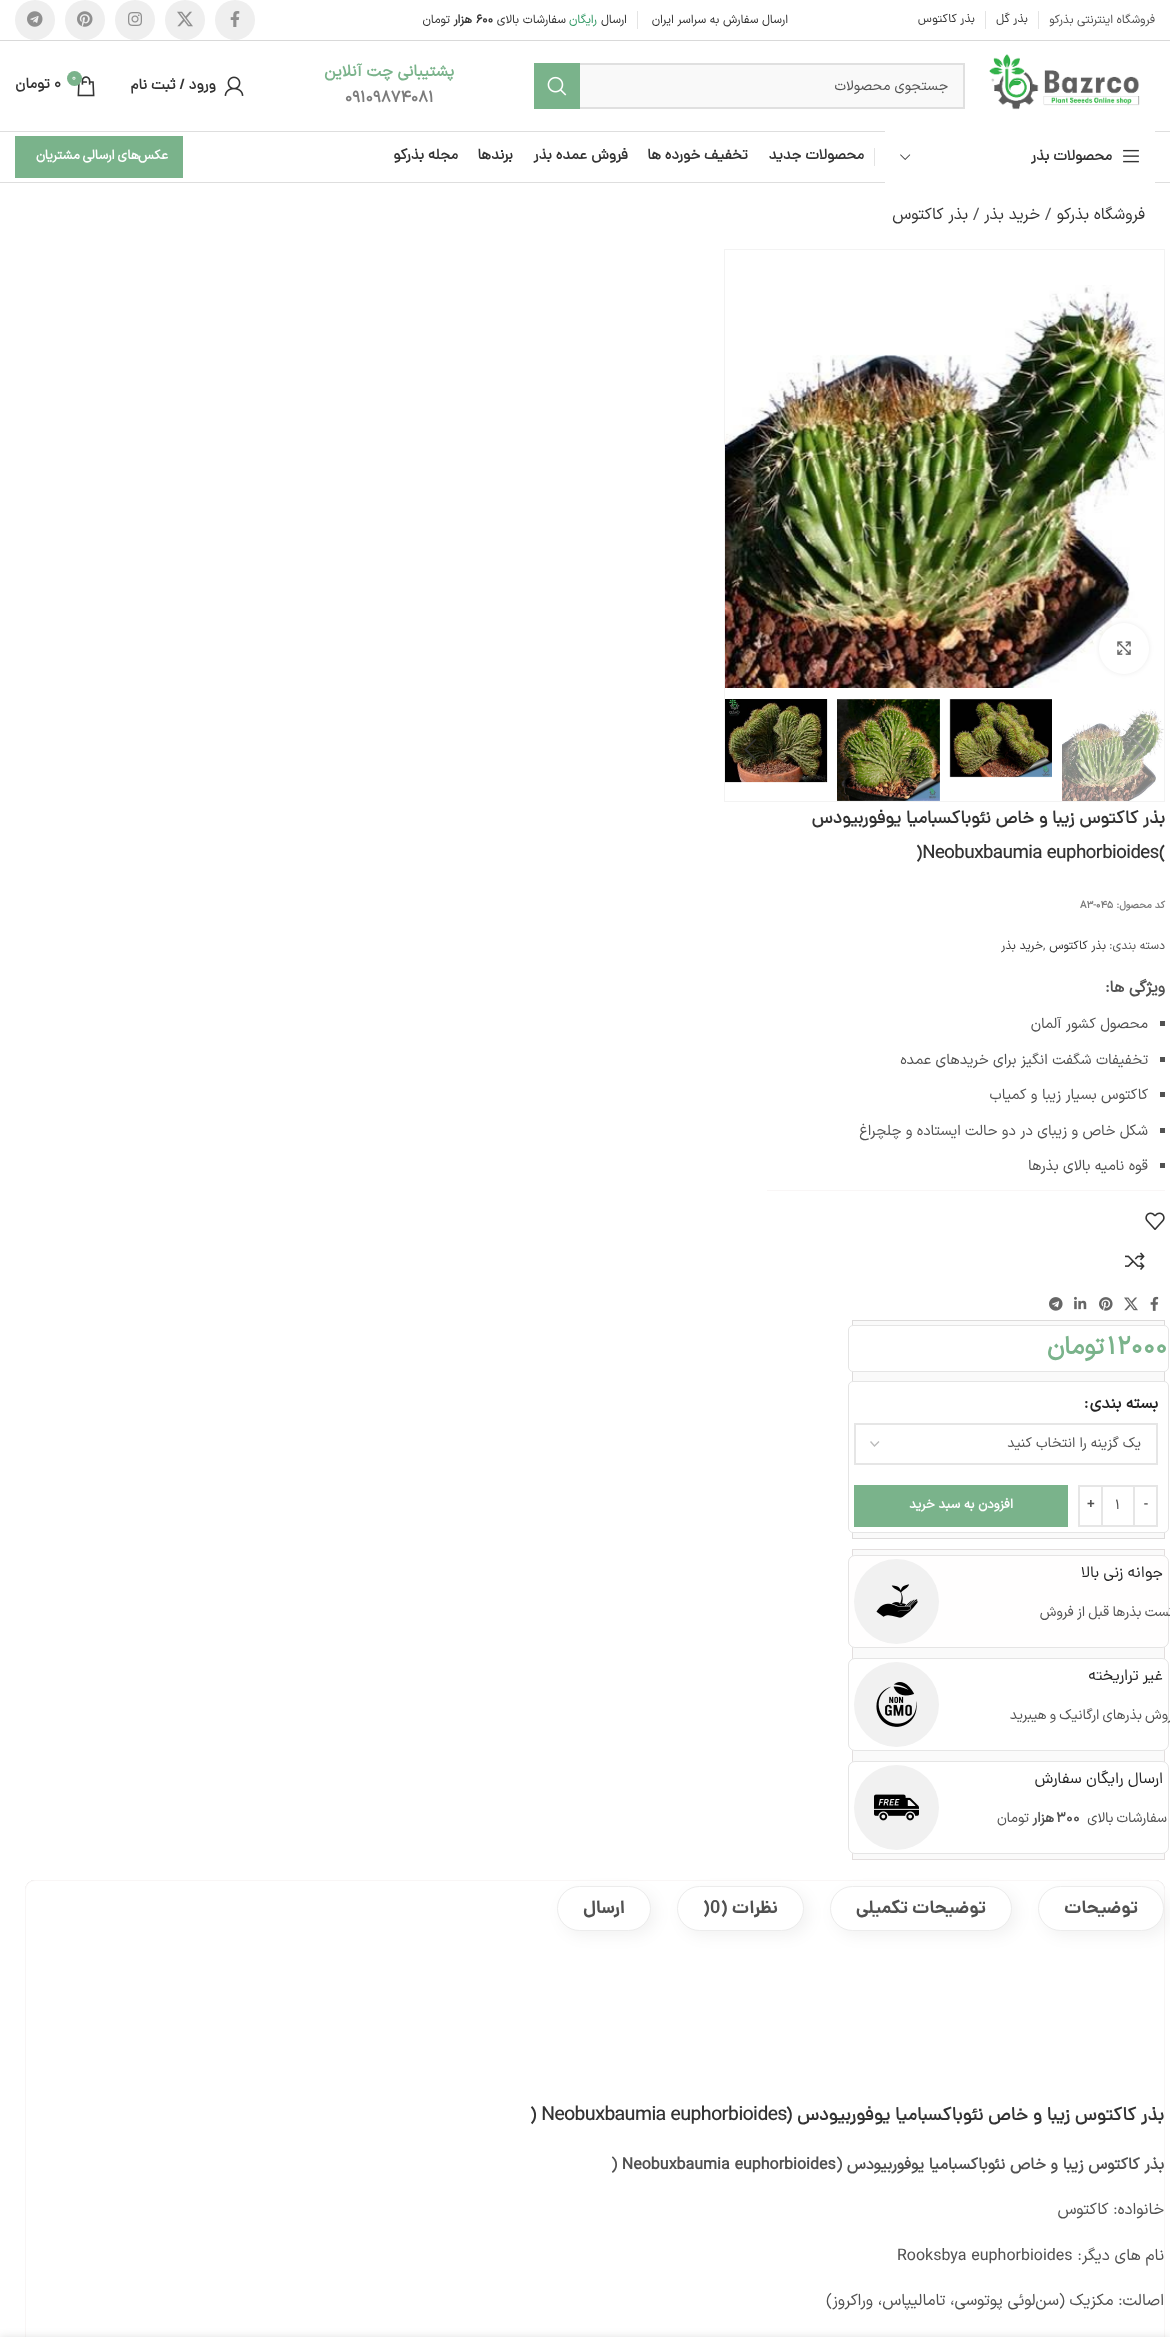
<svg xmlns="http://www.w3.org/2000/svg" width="1170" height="2337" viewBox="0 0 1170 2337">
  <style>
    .t1 { font: 12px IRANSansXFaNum; direction: rtl; fill: #515151; }
    .t2 { font: 12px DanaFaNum; direction: rtl; fill: #333; }
    .t3 { font: 12px IRANSansXFaNum; direction: rtl; fill: #333; }
    .t4 { font: 12px IRANSansXFaNum; direction: rtl; fill: #396; }
    .t5 { font: bold 12px IRANSansXFaNum; fill: #333; }
    .t6 { font: bold 12px IRANSansXFaNum; direction: rtl; fill: #333; }
    .t7 { font: 14px IRANSansXFaNum; direction: rtl; fill: #515151; }
    .t8 { font: bold 16px IRANSansXFaNum; direction: rtl; fill: #7ab38b; }
    .t9 { font: bold 16px IRANSansXFaNum; fill: #7b7b7b; }
    .t10 { font: bold 15px DanaFaNum; direction: rtl; fill: #333; }
    .t11 { font: 9px IRANSansXFaNum; fill: #fff; }
    .t12 { font: bold 15px DanaFaNum; fill: #333; }
    .t13 { font: bold 13px IRANSansXFaNum; direction: rtl; fill: #fff; }
    .t14 { font: 16px IRANSansXFaNum; direction: rtl; fill: #333; }
    .t15 { font: 16px IRANSansXFaNum; fill: #515151; }
    .t16 { font: bold 18px DanaFaNum; direction: rtl; fill: #333; }
    .t17 { font: bold 18px DanaFaNum; fill: #333; }
    .t18 { font: bold 10px IRANSansXFaNum; direction: rtl; fill: #7b7b7b; }
    .t19 { font: bold 10px IRANSansXFaNum; fill: #7b7b7b; }
    .t20 { font: 12px IRANSansXFaNum; fill: #515151; }
    .t21 { font: bold 16px IRANSansXFaNum; direction: rtl; fill: #515151; }
    .t22 { font: 14.7px IRANSansXFaNum; direction: rtl; fill: #515151; }
    .t23 { font: bold 25px IRANSansXFaNum; letter-spacing: 1px; fill: #7ab38b; }
    .t24 { font: bold 25px IRANSansXFaNum; letter-spacing: 1px; direction: rtl; fill: #7ab38b; }
    .t25 { font: bold 16px IRANSansXFaNum; direction: rtl; fill: #242424; }
    .t26 { font: bold 16px IRANSansXFaNum; fill: #242424; }
    .t27 { font: bold 13px IRANSansXFaNum; fill: #515151; }
    .t28 { font: 14px IRANSansXFaNum; fill: #515151; }
    .t29 { font: 16px DanaFaNum; direction: rtl; fill: #242424; }
    .t30 { font: 14px IRANSansXFaNum; letter-spacing: 0.7px; direction: rtl; fill: #515151; }
    .t31 { font: bold 14px IRANSansXFaNum; letter-spacing: 0.7px; fill: #515151; }
    .t32 { font: bold 14px IRANSansXFaNum; letter-spacing: 0.7px; direction: rtl; fill: #515151; }
    .t33 { font: bold 18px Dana; direction: rtl; fill: #515151; }
    .t34 { font: bold 18px Dana; fill: #515151; }
    .t35 { font: bold 18.7px DanaFaNum; direction: rtl; fill: #333; }
    .t36 { font: bold 18.7px DanaFaNum; fill: #333; }
    .t37 { font: bold 16px IRANSansXFaNum; fill: #515151; }
    .t38 { font: 16px IRANSansXFaNum; direction: rtl; fill: #515151; }
  </style>
  <defs>
    <clipPath id="clip1"><path d="M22 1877H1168V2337H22ZM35 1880H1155C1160.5 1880 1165 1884.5 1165 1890V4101C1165 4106.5 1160.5 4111 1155 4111H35C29.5 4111 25 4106.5 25 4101V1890C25 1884.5 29.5 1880 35 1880Z" clip-rule="evenodd"/></clipPath>
  </defs>
  <rect width="100%" height="100%" fill="#fff"/>
  <rect x="0" y="40" width="1170" height="1" fill="#d9d9d9"/>
  <text x="1155" y="23" class="t1">فروشگاه اینترنتی بذرکو</text>
  <rect x="1038" y="11" width="1" height="18" fill="#e4e4e4"/>
  <text x="1028" y="22" class="t2">بذر گل</text>
  <rect x="985" y="11" width="1" height="18" fill="#e4e4e4"/>
  <text x="975" y="22" class="t2">بذر کاکتوس</text>
  <text x="788" y="23" class="t3">ارسال سفارش به سراسر ایران</text>
  <rect x="637" y="11" width="1" height="18" fill="#e4e4e4"/>
  <text x="627" y="23" class="t3">ارسال</text>
  <text x="597" y="23" class="t4">رایگان</text>
  <text x="566" y="23" class="t3">سفارشات بالای</text>
  <text x="476" y="23" class="t5">600</text>
  <text x="472" y="23" class="t6">هزار</text>
  <text x="450" y="23" class="t3">تومان</text>
  <circle cx="235" cy="20" r="20" fill="#efefef"/>
  <image x="230" y="11" width="10" height="16" href="images/1.png"/>
  <circle cx="185" cy="20" r="20" fill="#efefef"/>
  <image x="177" y="11" width="16" height="16" href="images/2.png"/>
  <circle cx="135" cy="20" r="20" fill="#efefef"/>
  <image x="128" y="12" width="14" height="14" href="images/3.png"/>
  <circle cx="85" cy="20" r="20" fill="#efefef"/>
  <image x="77" y="11" width="16" height="16" href="images/4.png"/>
  <circle cx="35" cy="20" r="20" fill="#efefef"/>
  <image x="27" y="11" width="16" height="16" href="images/5.png"/>
  <rect x="0" y="131" width="1170" height="1" fill="#dedede"/>
  <image x="989" y="54" width="151" height="56" href="images/6.png"/>
  <rect x="580" y="65" width="383" height="42" fill="#f9f9f9"/>
  <rect x="535" y="64" width="429" height="44" fill="none" stroke="#e0e0e0" stroke-width="2"/>
  <text x="948" y="90" class="t7">جستجوی محصولات</text>
  <rect x="534" y="63" width="46" height="46" fill="#7ab38b"/>
  <image x="547" y="76" width="20" height="20" href="images/7.png"/>
  <text x="454" y="76" class="t8">پشتیبانی چت آنلاین</text>
  <text x="345" y="102" class="t9">09109874081</text>
  <image x="224" y="76" width="20" height="20" href="images/8.png"/>
  <text x="216" y="89" class="t10">ورود / ثبت نام</text>
  <image x="77" y="76" width="18" height="21" href="images/9.png"/>
  <circle cx="74.5" cy="78.5" r="7.5" fill="#7ab38b"/>
  <text x="72" y="80" class="t11">0</text>
  <text x="54" y="88" class="t12">0</text>
  <text x="50" y="88" class="t10">تومان</text>
  <rect x="0" y="182" width="1170" height="1" fill="#dedede"/>
  <rect x="885" y="131" width="270" height="52" fill="#fff"/>
  <image x="1123" y="149" width="16" height="14" href="images/10.png"/>
  <text x="1112" y="160" class="t10">محصولات بذر</text>
  <image x="900" y="154" width="11" height="6" href="images/11.png"/>
  <rect x="874" y="148" width="1" height="18" fill="#e4e4e4"/>
  <text x="864" y="159" class="t10">محصولات جدید</text>
  <text x="748" y="159" class="t10">تخفیف خورده ها</text>
  <text x="628" y="159" class="t10">فروش عمده بذر</text>
  <text x="513" y="159" class="t10">برندها</text>
  <text x="458" y="159" class="t10">مجله بذرکو</text>
  <rect x="15" y="136" width="168" height="42" fill="#7ab38b"/>
  <text x="139" y="159" word-spacing="-1" class="t13">های ارسالی مشتریان</text>
  <text x="168" y="159" class="t13">عکس</text>
  <text x="1145" y="219" class="t14">فروشگاه بذرکو</text>
  <text x="1045" y="219" class="t15">/</text>
  <text x="1040" y="219" class="t14">خرید بذر</text>
  <text x="973" y="219" class="t15">/</text>
  <text x="968" y="219" class="t14">بذر کاکتوس</text>
  <rect x="724.5" y="249.5" width="440" height="552" fill="none" stroke="#f3f3f3"/>
  <image x="725" y="285" width="439" height="403" href="images/12.png"/>
  <rect x="1099" y="623" width="50" height="51" rx="25" fill="#00000014" filter="blur(2.5px)"/>
  <rect x="1099" y="623" width="50" height="51" rx="25" fill="#fff"/>
  <image x="1117" y="641" width="14" height="14" href="images/13.png"/>
  <image x="1062" y="709" width="102" height="92" href="images/14.png"/>
  <image x="949" y="699" width="103" height="79" href="images/15.png"/>
  <image x="837" y="699" width="103" height="102" href="images/16.png"/>
  <image x="725" y="699" width="103" height="84" href="images/17.png"/>
  <path d="M1133 739.5L1143 749.5L1133 759.5L1134.5 760.5L1145.5 749.5L1134.5 738.5Z" fill="#a5a5a5"/>
  <path d="M756.5 739.5L755.5 738.5L744 749.5L755.5 760.5L756.5 759.5L747 749.5Z" fill="#333"/>
  <text x="1165" y="823" class="t16">بذر کاکتوس زیبا و خاص نئوباکسبامیا یوفوربیودس</text>
  <text x="916" y="858" class="t17">)Neobuxbaumia euphorbioides(</text>
  <text x="1165" y="908" class="t18">کد محصول:</text>
  <text x="1080" y="908" class="t19">A3-045</text>
  <text x="1165" y="949" class="t1">دسته بندی:</text>
  <text x="1106" y="949" class="t3">بذر کاکتوس</text>
  <text x="1043" y="949" class="t20">,</text>
  <text x="1043" y="949" class="t3">خرید بذر</text>
  <text x="1165" y="992" class="t21">ویژگی ها:</text>
  <rect x="767" y="1190" width="398" height="1" fill="#f9f6f6"/>
  <rect x="1160" y="1021" width="5" height="5" fill="#515151"/>
  <text x="1148" y="1028" class="t22">محصول کشور آلمان</text>
  <rect x="1160" y="1057" width="5" height="5" fill="#515151"/>
  <text x="1148" y="1064" class="t22">تخفیفات شگفت انگیز برای خریدهای عمده</text>
  <rect x="1160" y="1092" width="5" height="5" fill="#515151"/>
  <text x="1148" y="1099" class="t22">کاکتوس بسیار زیبا و کمیاب</text>
  <rect x="1160" y="1128" width="5" height="5" fill="#515151"/>
  <text x="1148" y="1135" class="t22">شکل خاص و زیبای در دو حالت ایستاده و چلچراغ</text>
  <rect x="1160" y="1163" width="5" height="5" fill="#515151"/>
  <text x="1148" y="1170" class="t22">قوه نامیه بالای بذرها</text>
  <image x="1145" y="1212" width="20" height="18" href="images/18.png"/>
  <image x="1125" y="1252" width="20" height="18" href="images/19.png"/>
  <image x="1150" y="1296" width="9" height="15" href="images/20.png"/>
  <image x="1124" y="1297" width="14" height="14" href="images/21.png"/>
  <image x="1099" y="1297" width="14" height="14" href="images/22.png"/>
  <image x="1074" y="1296" width="13" height="14" href="images/23.png"/>
  <image x="1049" y="1297" width="14" height="14" href="images/24.png"/>
  <rect x="852.5" y="1320.5" width="312" height="218" fill="#fafafa" stroke="#dddbdb"/>
  <rect x="848.5" y="1325.5" width="320" height="46" rx="4.5" fill="#fff" stroke="#e5e5e5"/>
  <text x="1107" y="1354" class="t23">12000</text>
  <text x="1104" y="1354" class="t24">تومان</text>
  <rect x="848.5" y="1381.5" width="320" height="151" rx="4.5" fill="#fff" stroke="#e5e5e5"/>
  <text x="1158" y="1408" class="t25">بسته بندی</text>
  <text x="1084" y="1408" class="t26">:</text>
  <path d="M870.5 1441.5L874.5 1446L879 1441.5" fill="none" stroke="#bbb" stroke-width="1.4"/>
  <rect x="855" y="1424" width="302" height="40" fill="none" stroke="#e6e6e6" stroke-width="2"/>
  <text x="1141" y="1447" class="t7">یک گزینه را انتخاب کنید</text>
  <rect x="1134" y="1486" width="23" height="40" fill="none" stroke="#e6e6e6" stroke-width="2"/>
  <text x="1144" y="1508" class="t27">-</text>
  <rect x="1103" y="1485" width="30" height="2" fill="#e6e6e6"/>
  <rect x="1103" y="1525" width="30" height="2" fill="#e6e6e6"/>
  <text x="1115" y="1509" class="t28">1</text>
  <rect x="1079" y="1486" width="23" height="40" fill="none" stroke="#e6e6e6" stroke-width="2"/>
  <text x="1087" y="1508" class="t27">+</text>
  <rect x="854" y="1485" width="214" height="42" fill="#7ab38b"/>
  <text x="1013" y="1508" class="t13">افزودن به سبد خرید</text>
  <rect x="852.5" y="1549.5" width="312" height="310" fill="#fafafa" stroke="#e3dede"/>
  <rect x="848" y="1555" width="321" height="93" rx="7" fill="#fffefe"/>
  <rect x="848.5" y="1555.5" width="320" height="92" rx="6.5" fill="none" stroke="#1010101c"/>
  <text x="1163" y="1577" class="t29">جوانه زنی بالا</text>
  <text x="1174" y="1616" word-spacing="-1" class="t30">تست بذرها قبل از فروش</text>
  <circle cx="896.5" cy="1601.5" r="42.5" fill="#f1f1f1"/>
  <image x="876" y="1584" width="42" height="34" href="images/25.png"/>
  <rect x="848" y="1658" width="321" height="93" rx="7" fill="#fff"/>
  <rect x="848.5" y="1658.5" width="320" height="92" rx="6.5" fill="none" stroke="#1010101c"/>
  <text x="1163" y="1680" class="t29">غیر تراریخته</text>
  <text x="1179" y="1719" word-spacing="-1" class="t30">فروش بذرهای ارگانیک و هیبرید</text>
  <circle cx="896.5" cy="1704.5" r="42.5" fill="#f1f1f1"/>
  <image x="876" y="1682" width="41" height="45" href="images/26.png"/>
  <rect x="848" y="1761" width="321" height="93" rx="7" fill="#fff"/>
  <rect x="848.5" y="1761.5" width="320" height="92" rx="6.5" fill="none" stroke="#1010101c"/>
  <text x="1163" y="1783" class="t29">ارسال رایگان سفارش</text>
  <text x="1167" y="1822" word-spacing="-1" class="t30">سفارشات بالای</text>
  <text x="1056" y="1822" class="t31">300</text>
  <text x="1054" y="1822" class="t32">هزار</text>
  <text x="1029" y="1822" class="t30">تومان</text>
  <circle cx="896.5" cy="1807.5" r="42.5" fill="#f1f1f1"/>
  <image x="874" y="1794" width="45" height="27" href="images/27.png"/>
  <g clip-path="url(#clip1)">
    <rect x="25" y="1880" width="1140" height="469" rx="10" fill="#0000004f" filter="blur(0.5px)"/>
  </g>
  <rect x="25.5" y="1880.5" width="1139" height="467" rx="9.5" fill="none" stroke="#f2ecec7d"/>
  <rect x="1043" y="1891" width="126" height="45" rx="22.5" fill="#0000000d" filter="blur(7.5px)"/>
  <rect x="1038.5" y="1886.5" width="125" height="44" rx="22" fill="#fff" stroke="#ececec"/>
  <text x="1138" y="1913" class="t33">توضیحات</text>
  <rect x="835" y="1891" width="182" height="45" rx="22.5" fill="#0000000d" filter="blur(7.5px)"/>
  <rect x="830.5" y="1886.5" width="181" height="44" rx="22" fill="#fff" stroke="#ececec"/>
  <text x="986" y="1913" class="t33">توضیحات تکمیلی</text>
  <rect x="682" y="1891" width="127" height="45" rx="22.5" fill="#0000000d" filter="blur(7.5px)"/>
  <rect x="677.5" y="1886.5" width="126" height="44" rx="22" fill="#fff" stroke="#ececec"/>
  <text x="778" y="1913" class="t33">نظرات (</text>
  <text x="703" y="1913" class="t34">)0</text>
  <rect x="562" y="1891" width="94" height="45" rx="22.5" fill="#0000000d" filter="blur(7.5px)"/>
  <rect x="557.5" y="1886.5" width="93" height="44" rx="22" fill="#fff" stroke="#ececec"/>
  <text x="625" y="1913" class="t33">ارسال</text>
  <text x="1164" y="2120" class="t35">بذر کاکتوس زیبا و خاص نئوباکسبامیا یوفوربیودس (</text>
  <text x="530" y="2120" class="t36">) Neobuxbaumia euphorbioides</text>
  <text x="1164" y="2169" class="t21">بذر کاکتوس زیبا و خاص نئوباکسبامیا یوفوربیودس (</text>
  <text x="611" y="2169" class="t37">) Neobuxbaumia euphorbioides</text>
  <text x="1164" y="2214" class="t38">خانواده: کاکتوس</text>
  <text x="1164" y="2260" class="t38">نام های دیگر:</text>
  <text x="897" y="2260" class="t15">Rooksbya euphorbioides</text>
  <text x="1164" y="2305" class="t38">اصالت: مکزیک (سن‌لوئی پوتوسی، تامالیپاس، وراکروز)</text>
  <rect x="0" y="2337" width="1170" height="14" fill="#0000001f" filter="blur(4.5px)"/>
</svg>
